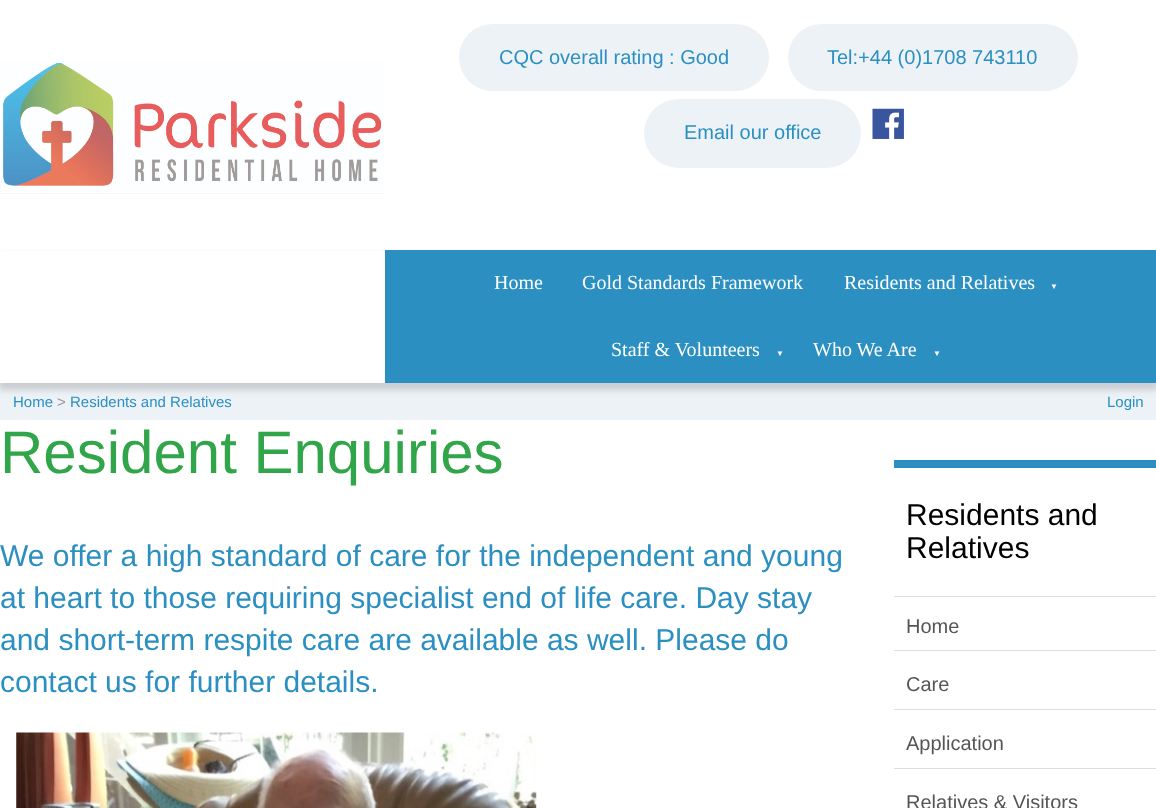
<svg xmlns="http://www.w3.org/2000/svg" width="1156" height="808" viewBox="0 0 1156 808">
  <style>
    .t1 { font: 20px Liberation Sans; fill: #2b90c1; }
    .t2 { font: 20px Liberation Serif; fill: #fff; }
    .t3 { font: 8px Liberation Serif; fill: #fff; }
    .t4 { font: 15px Liberation Sans; fill: #2b90c1; }
    .t5 { font: 15px Liberation Sans; fill: #999; }
    .t6 { font: 60px Liberation Sans; fill: #31a549; }
    .t7 { font: 30px Liberation Sans; fill: #2b90c1; }
    .t8 { font: 30px Liberation Sans; fill: #000; }
    .t9 { font: 20px Liberation Sans; fill: #555; }
  </style>
  <rect width="100%" height="100%" fill="#fff"/>
  <image x="0" y="62" width="385" height="132" href="images/1.png"/>
  <rect x="459" y="24" width="310" height="67" rx="33.5" fill="#edf2f7"/>
  <text x="499" y="64" class="t1">CQC overall rating : Good</text>
  <rect x="788" y="24" width="290" height="67" rx="33.5" fill="#edf2f7"/>
  <text x="827" y="64" class="t1">Tel:+44 (0)1708 743110</text>
  <rect x="644" y="99" width="217" height="69" rx="34.5" fill="#edf2f7"/>
  <text x="684" y="139" class="t1">Email our office</text>
  <image x="872" y="108" width="32" height="31" href="images/2.png"/>
  <rect x="0" y="383" width="1156" height="37" fill="#edf2f7"/>
  <rect x="-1" y="255" width="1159" height="135" fill="#00000026" filter="blur(3px)"/>
  <rect x="0" y="251" width="385" height="132" fill="#fff"/>
  <rect x="385" y="250" width="771" height="133" fill="#2b90c1"/>
  <text x="494" y="289" class="t2">Home</text>
  <text x="582" y="289" class="t2">Gold Standards Framework</text>
  <text x="844" y="289" class="t2">Residents and Relatives</text>
  <text x="1050" y="289" class="t3">▼</text>
  <text x="611" y="356" class="t2">Staff &amp; Volunteers</text>
  <text x="776" y="356" class="t3">▼</text>
  <text x="813" y="356" class="t2">Who We Are</text>
  <text x="933" y="356" class="t3">▼</text>
  <text x="13" y="407" class="t4">Home</text>
  <text x="57" y="407" class="t5">&gt;</text>
  <text x="70" y="407" class="t4">Residents and Relatives</text>
  <text x="1107" y="407" class="t4">Login</text>
  <text x="0" y="473" class="t6">Resident Enquiries</text>
  <text x="0" y="566" class="t7">We offer a high standard of care for the independent and young</text>
  <text x="0" y="608" class="t7">at heart to those requiring specialist end of life care. Day stay</text>
  <text x="0" y="650" class="t7">and short-term respite care are available as well. Please do</text>
  <text x="0" y="692" class="t7">contact us for further details.</text>
  <image x="16" y="732" width="521" height="76" href="images/3.png"/>
  <rect x="894" y="460" width="262" height="8" fill="#2b90c1"/>
  <rect x="894" y="596" width="262" height="1" fill="#ddd"/>
  <text x="906" y="525" class="t8">Residents and</text>
  <text x="906" y="558" class="t8">Relatives</text>
  <rect x="894" y="650" width="262" height="1" fill="#ddd"/>
  <text x="906" y="633" class="t9">Home</text>
  <rect x="894" y="709" width="262" height="1" fill="#ddd"/>
  <text x="906" y="691" class="t9">Care</text>
  <rect x="894" y="768" width="262" height="1" fill="#ddd"/>
  <text x="906" y="750" class="t9">Application</text>
  <text x="906" y="809" class="t9">Relatives &amp; Visitors</text>
</svg>
